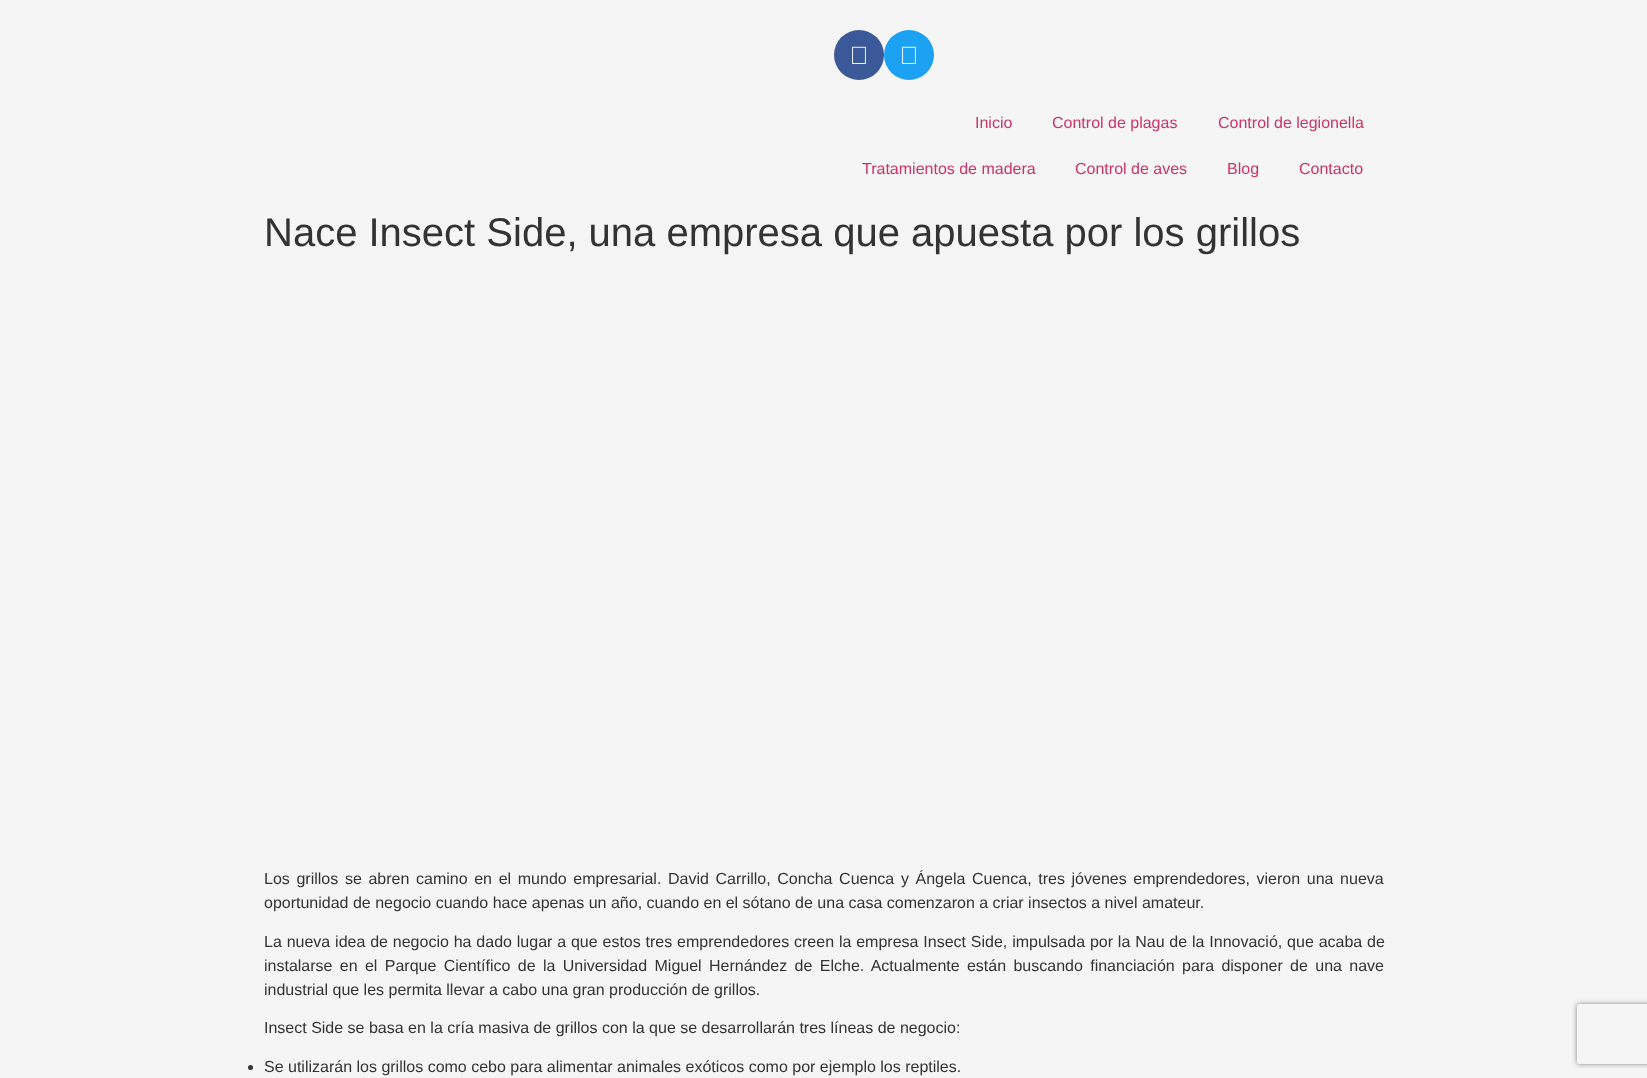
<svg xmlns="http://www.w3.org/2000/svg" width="1647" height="1078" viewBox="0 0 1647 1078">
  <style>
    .t1 { font: 16px Liberation Sans; fill: #c36; }
    .t2 { font: 40px Liberation Sans; fill: #333; }
    .t3 { font: 16px Liberation Sans; fill: #333; }
  </style>
  <defs>
    <clipPath id="clip1"><path d="M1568 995H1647V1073H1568ZM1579 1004H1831C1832 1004 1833 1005 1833 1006V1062C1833 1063 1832 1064 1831 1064H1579C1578 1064 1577 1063 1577 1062V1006C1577 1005 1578 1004 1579 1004Z" clip-rule="evenodd"/></clipPath>
  </defs>
  <rect width="100%" height="100%" fill="#f5f5f5"/>
  <circle cx="859" cy="55" r="25" fill="#3b5998"/>
  <image x="852" y="46" width="14" height="18" href="images/1.png"/>
  <circle cx="909" cy="55" r="25" fill="#1da1f2"/>
  <image x="902" y="46" width="14" height="18" href="images/2.png"/>
  <text x="975" y="128" class="t1">Inicio</text>
  <text x="1052" y="128" class="t1">Control de plagas</text>
  <text x="1218" y="128" class="t1">Control de legionella</text>
  <text x="862" y="174" class="t1">Tratamientos de madera</text>
  <text x="1075" y="174" class="t1">Control de aves</text>
  <text x="1227" y="174" class="t1">Blog</text>
  <text x="1299" y="174" class="t1">Contacto</text>
  <text x="264" y="246" class="t2">Nace Insect Side, una empresa que apuesta por los grillos</text>
  <text x="264" y="884" word-spacing="2.2" class="t3">Los grillos se abren camino en el mundo empresarial. David Carrillo, Concha Cuenca y Ángela Cuenca, tres jóvenes emprendedores, vieron una nueva</text>
  <text x="264" y="908" class="t3">oportunidad de negocio cuando hace apenas un año, cuando en el sótano de una casa comenzaron a criar insectos a nivel amateur.</text>
  <text x="264" y="947" word-spacing="0.4" class="t3">La nueva idea de negocio ha dado lugar a que estos tres emprendedores creen la empresa Insect Side, impulsada por la Nau de la Innovació, que acaba de</text>
  <text x="264" y="971" word-spacing="2.9" class="t3">instalarse en el Parque Científico de la Universidad Miguel Hernández de Elche. Actualmente están buscando financiación para disponer de una nave</text>
  <text x="264" y="995" class="t3">industrial que les permita llevar a cabo una gran producción de grillos.</text>
  <text x="264" y="1033" class="t3">Insect Side se basa en la cría masiva de grillos con la que se desarrollarán tres líneas de negocio:</text>
  <circle cx="250.5" cy="1067.5" r="2.5" fill="#333"/>
  <text x="264" y="1072" class="t3">Se utilizarán los grillos como cebo para alimentar animales exóticos como por ejemplo los reptiles.</text>
  <g clip-path="url(#clip1)">
    <rect x="1577" y="1004" width="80" height="60" rx="2" fill="#808080" filter="blur(2.5px)"/>
  </g>
</svg>
